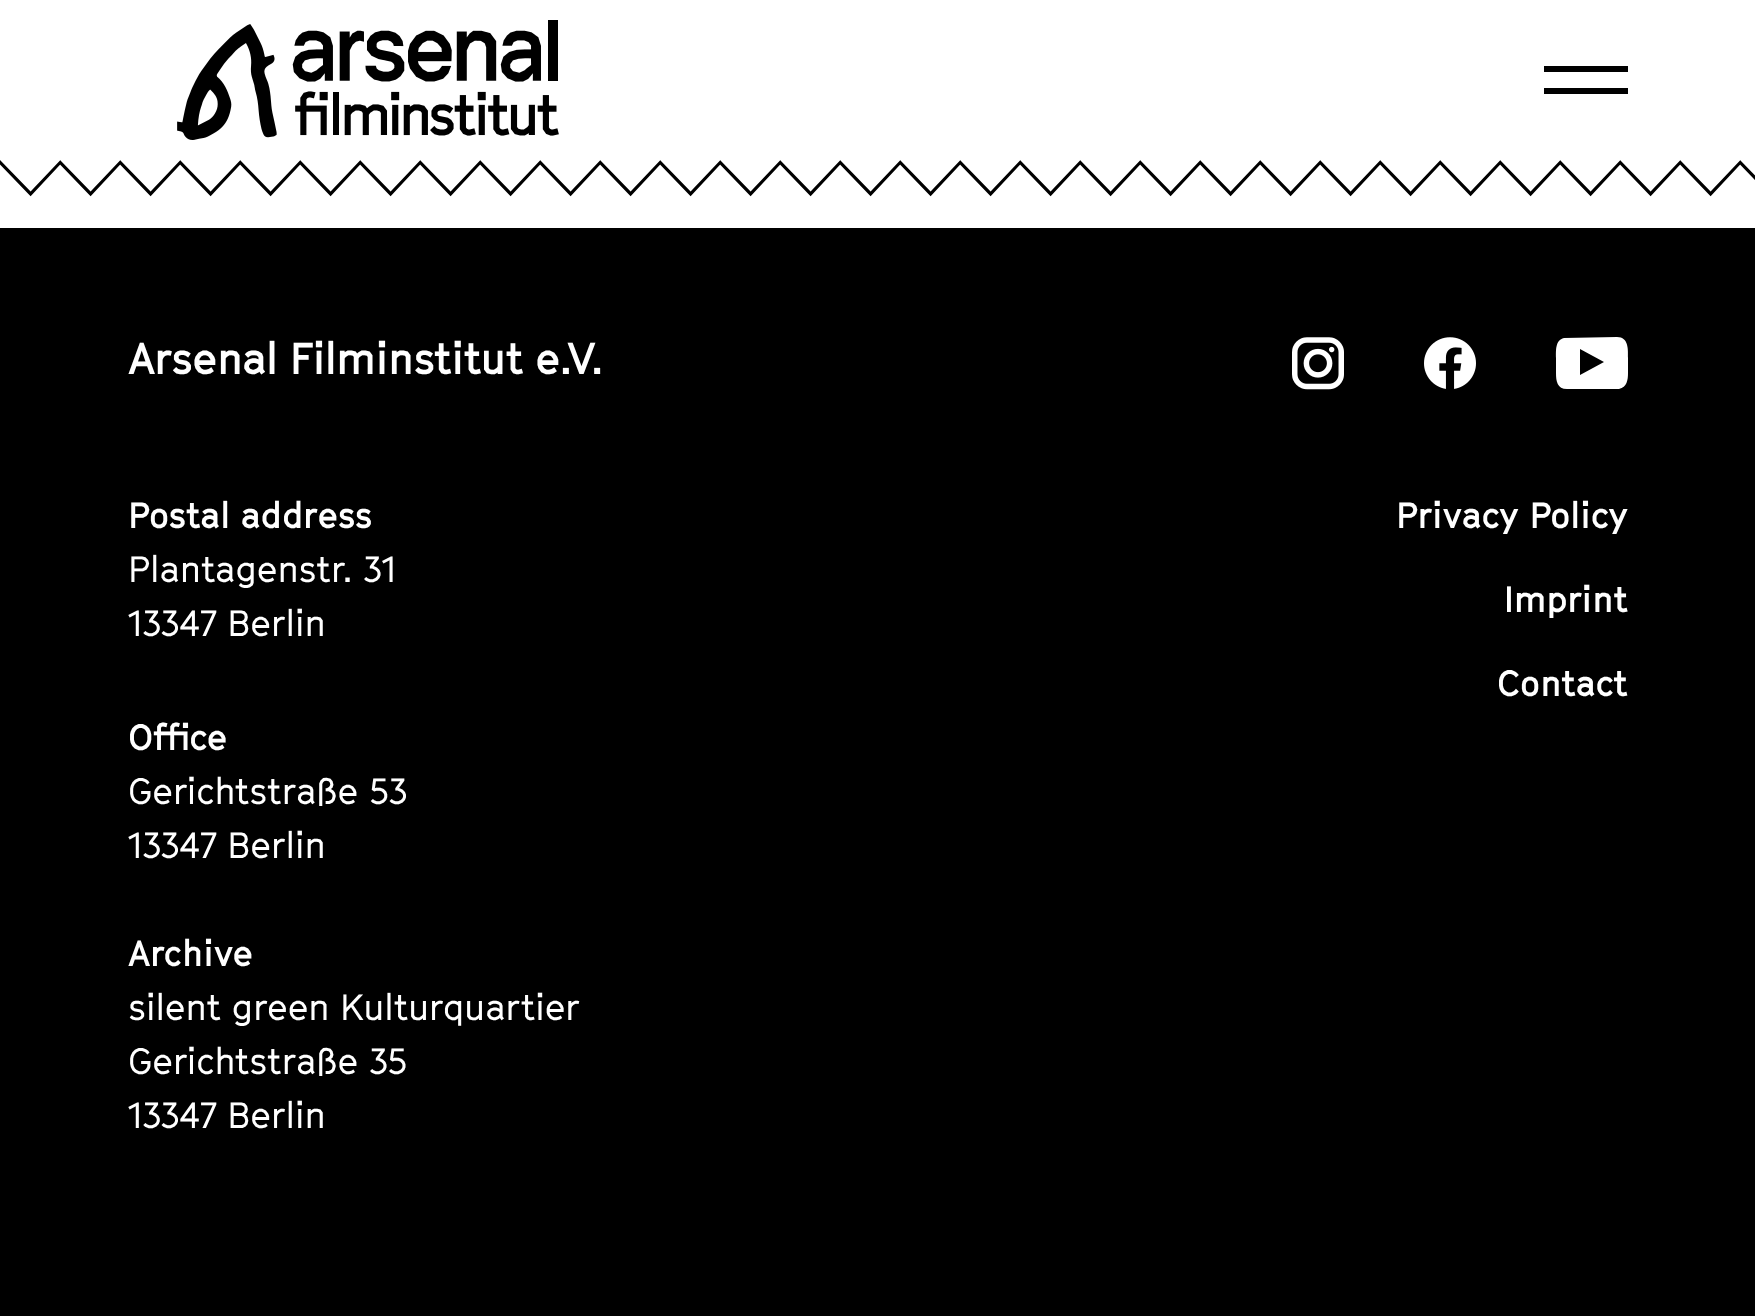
<svg xmlns="http://www.w3.org/2000/svg" width="1755" height="1316" viewBox="0 0 1755 1316">
  <style>
    .t1 { font: bold 44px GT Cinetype; letter-spacing: -0.6px; fill: #fff; }
    .t2 { font: bold 36px GT Cinetype; fill: #fff; }
    .t3 { font: 36px GT Cinetype; fill: #fff; }
  </style>
  <rect width="100%" height="100%" fill="#fff"/>
  <image x="177" y="20" width="382" height="120" href="images/1.png"/>
  <rect x="1544" y="66" width="84" height="6" fill="#000"/>
  <rect x="1544" y="88" width="84" height="6" fill="#000"/>
  <image x="0" y="160" width="1755" height="37" href="images/2.png"/>
  <rect x="0" y="228" width="1755" height="1088" fill="#000"/>
  <text x="128" y="374" class="t1">Arsenal Filminstitut e.V.</text>
  <image x="1292" y="337" width="52" height="53" href="images/3.png"/>
  <image x="1424" y="337" width="52" height="52" href="images/4.png"/>
  <path d="M1617 337C1629 337 1628 350 1628 358V373C1628 380 1627 387 1619 389H1567C1557 389 1556 381 1556 373V358C1556 351 1555 340 1564 338ZM1580 349V375L1604 362Z" fill="#fff"/>
  <text x="128" y="528" class="t2">Postal address</text>
  <text x="128" y="582" class="t3">Plantagenstr. 31</text>
  <text x="128" y="636" class="t3">13347 Berlin</text>
  <text x="128" y="750" class="t2">Office</text>
  <text x="128" y="804" class="t3">Gerichtstraße 53</text>
  <text x="128" y="858" class="t3">13347 Berlin</text>
  <text x="128" y="966" class="t2">Archive</text>
  <text x="128" y="1020" class="t3">silent green Kulturquartier</text>
  <text x="128" y="1074" class="t3">Gerichtstraße 35</text>
  <text x="128" y="1128" class="t3">13347 Berlin</text>
  <text x="1396" y="528" class="t2">Privacy Policy</text>
  <text x="1504" y="612" class="t2">Imprint</text>
  <text x="1497" y="696" class="t2">Contact</text>
</svg>
